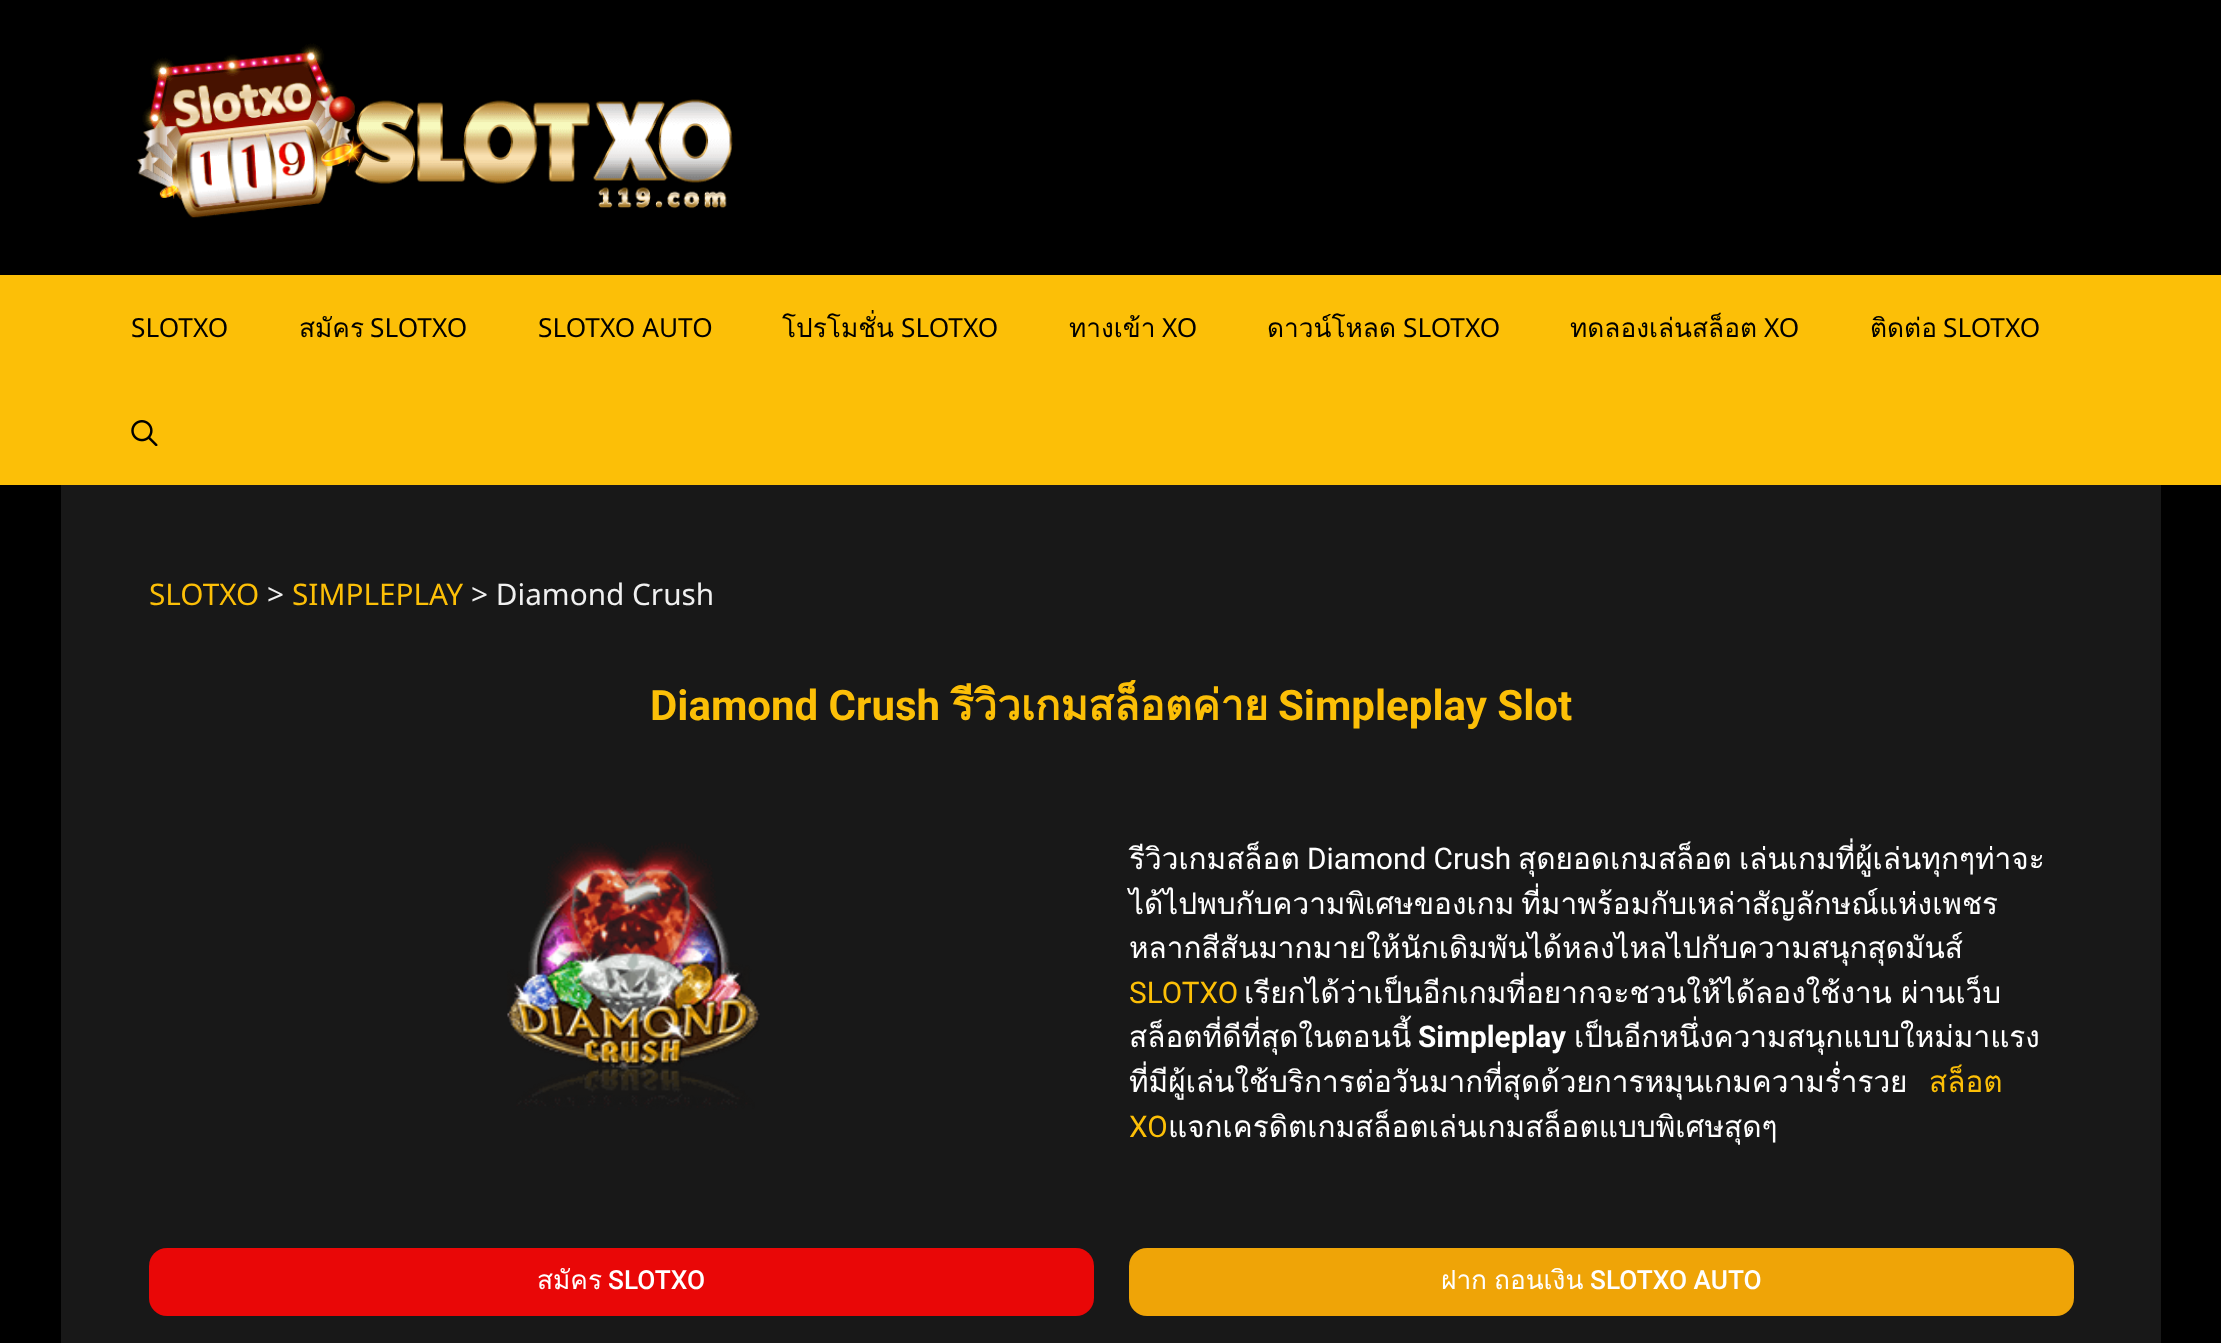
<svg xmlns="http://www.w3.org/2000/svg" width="2221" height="1343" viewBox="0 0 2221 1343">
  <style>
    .t1 { font: 26.25px Noto Sans; fill: #000; }
    .t2 { font: 26.25px Loma; fill: #000; }
    .t3 { font: 29.75px Noto Sans; fill: #fcbf07; }
    .t4 { font: 29.75px Noto Sans; fill: #f0f0f0; }
    .t5 { font: bold 42px Roboto; fill: #fcbf07; }
    .t6 { font: bold 42px Loma; fill: #fcbf07; }
    .t7 { font: 29.75px Loma; fill: #fff; }
    .t8 { font: 29.75px Roboto; fill: #fff; }
    .t9 { font: 29.75px Roboto; fill: #fcbf07; }
    .t10 { font: bold 29.75px Roboto; fill: #fff; }
    .t11 { font: 29.75px Loma; fill: #fcbf07; }
    .t12 { font: 26.25px Loma; fill: #fff; }
    .t13 { font: 500 26.25px Roboto; fill: #fff; }
  </style>
  <rect width="100%" height="100%" fill="#000"/>
  <image x="137" y="43" width="596" height="175" href="images/1.png"/>
  <rect x="0" y="275" width="2221" height="210" fill="#fcbf07"/>
  <text x="131" y="337" class="t1">SLOTXO</text>
  <text x="299" y="337" class="t2">สมัคร</text>
  <text x="370" y="337" class="t1">SLOTXO</text>
  <text x="538" y="337" class="t1">SLOTXO AUTO</text>
  <text x="782" y="337" class="t2">โปรโมชั่น</text>
  <text x="901" y="337" class="t1">SLOTXO</text>
  <text x="1069" y="337" class="t2">ทางเข้า</text>
  <text x="1162" y="337" class="t1">XO</text>
  <text x="1267" y="337" class="t2">ดาวน์โหลด</text>
  <text x="1403" y="337" class="t1">SLOTXO</text>
  <text x="1570" y="337" class="t2">ทดลองเล่นสล็อต</text>
  <text x="1764" y="337" class="t1">XO</text>
  <text x="1870" y="337" class="t2">ติดต่อ</text>
  <text x="1943" y="337" class="t1">SLOTXO</text>
  <image x="131" y="420" width="27" height="26" href="images/2.png"/>
  <rect x="61" y="485" width="2100" height="858" fill="#181818"/>
  <text x="149" y="605" class="t3">SLOTXO</text>
  <text x="267" y="605" class="t4">&gt;</text>
  <text x="292" y="605" class="t3">SIMPLEPLAY</text>
  <text x="471" y="605" class="t4">&gt; Diamond Crush</text>
  <text x="650" y="720" class="t5">Diamond Crush</text>
  <text x="951" y="720" class="t6">รีวิวเกมสล็อตค่าย</text>
  <text x="1278" y="720" class="t5">Simpleplay Slot</text>
  <image x="507" y="842" width="253" height="268" href="images/3.png"/>
  <text x="1129" y="869" class="t7">รีวิวเกมสล็อต</text>
  <text x="1307" y="869" class="t8">Diamond Crush</text>
  <text x="1518" y="869" class="t7">สุดยอดเกมสล็อต</text>
  <text x="1739" y="869" class="t7">เล่นเกมที่ผู้เล่นทุกๆท่าจะ</text>
  <text x="1129" y="914" word-spacing="-3" class="t7">ได้ไปพบกับความพิเศษของเกม ที่มาพร้อมกับเหล่าสัญลักษณ์แห่งเพชร</text>
  <text x="1129" y="958" class="t7">หลากสีสันมากมายให้นักเดิมพันได้หลงไหลไปกับความสนุกสุดมันส์</text>
  <text x="1129" y="1003" class="t9">SLOTXO</text>
  <text x="1244" y="1003" word-spacing="-1" class="t7">เรียกได้ว่าเป็นอีกเกมที่อยากจะชวนให้ได้ลองใช้งาน ผ่านเว็บ</text>
  <text x="1129" y="1047" class="t7">สล็อตที่ดีที่สุดในตอนนี้</text>
  <text x="1418" y="1047" class="t10">Simpleplay</text>
  <text x="1574" y="1047" class="t7">เป็นอีกหนึ่งความสนุกแบบใหม่มาแรง</text>
  <text x="1129" y="1092" class="t7">ที่มีผู้เล่นใช้บริการต่อวันมากที่สุดด้วยการหมุนเกมความร่ำรวย</text>
  <text x="1929" y="1092" class="t11">สล็อต</text>
  <text x="1129" y="1137" class="t9">XO</text>
  <text x="1168" y="1137" class="t7">แจกเครดิตเกมสล็อตเล่นเกมสล็อตแบบพิเศษสุดๆ</text>
  <rect x="149" y="1248" width="945" height="68" rx="18" fill="#e90707"/>
  <text x="537" y="1289" class="t12">สมัคร</text>
  <text x="608" y="1289" class="t13">SLOTXO</text>
  <rect x="1129" y="1248" width="945" height="68" rx="18" fill="#efa407"/>
  <text x="1441" y="1289" class="t12">ฝาก</text>
  <text x="1494" y="1289" class="t12">ถอนเงิน</text>
  <text x="1590" y="1289" class="t13">SLOTXO AUTO</text>
</svg>
